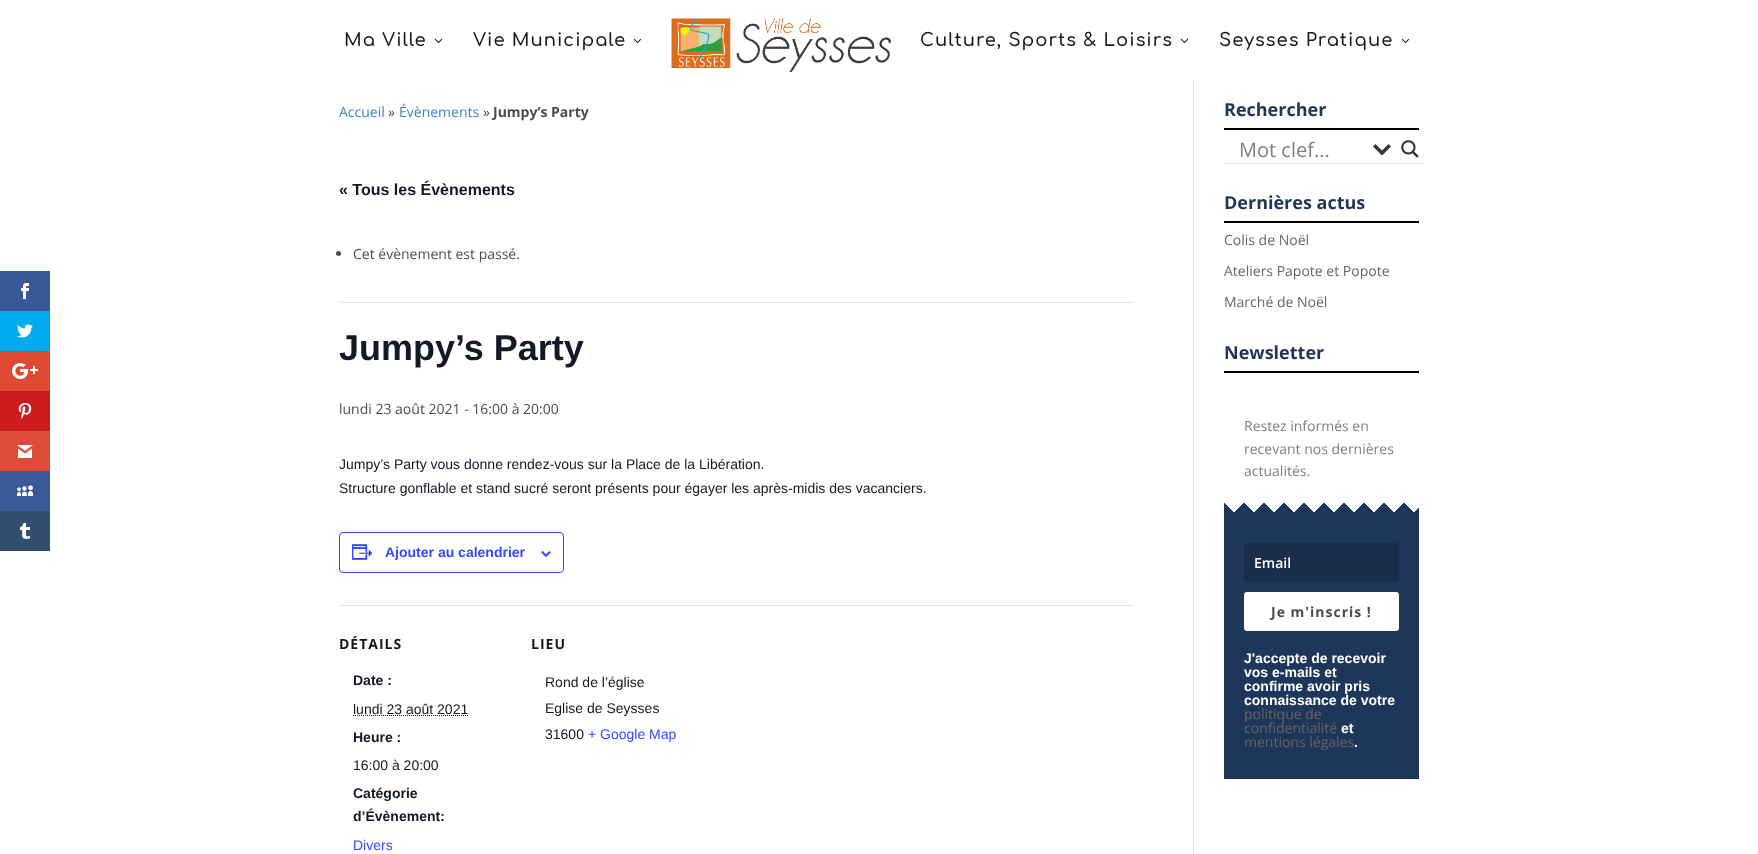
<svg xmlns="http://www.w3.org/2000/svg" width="1758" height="854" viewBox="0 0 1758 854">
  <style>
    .t1 { font: 600 18px Comfortaa; letter-spacing: 1px; fill: #191919; }
    .t2 { font: 14px Open Sans; fill: #3b84bf; }
    .t3 { font: 14px Open Sans; fill: #4c4c4c; }
    .t4 { font: bold 14px Open Sans; fill: #4c4c4c; }
    .t5 { font: bold 16px Liberation Sans; fill: #141827; }
    .t6 { font: bold 36px Liberation Sans; fill: #141827; }
    .t7 { font: 14px Liberation Sans; fill: #141827; }
    .t8 { font: bold 14px Liberation Sans; fill: #334aff; }
    .t9 { font: bold 14px Open Sans; letter-spacing: 1px; fill: #141827; }
    .t10 { font: bold 14px Liberation Sans; fill: #141827; }
    .t11 { font: 14px Liberation Sans; fill: #334aff; }
    .t12 { font: bold 18px Open Sans; fill: #1e3659; }
    .t13 { font: 20px Open Sans; fill: #808080; }
    .t14 { font: 14px Open Sans; fill: #666; }
    .t15 { font: 14px Open Sans; fill: #808080; }
    .t16 { font: 600 14px Open Sans; fill: #fff; }
    .t17 { font: bold 14px Open Sans; letter-spacing: 1px; fill: #4c4c4c; }
    .t18 { font: bold 14px Liberation Sans; fill: #fff; }
  </style>
  <defs>
    <linearGradient id="g1" gradientUnits="userSpaceOnUse" x1="1249" y1="538" x2="1219" y2="508"><stop offset="0.33" stop-color="#fff"/><stop offset="0.33" stop-color="#1e3659"/><stop offset="0.67" stop-color="#1e3659"/><stop offset="0.67" stop-color="#fff"/></linearGradient>
    <linearGradient id="g2" gradientUnits="userSpaceOnUse" x1="1269" y1="538" x2="1239" y2="508"><stop offset="0.33" stop-color="#fff"/><stop offset="0.33" stop-color="#1e3659"/><stop offset="0.67" stop-color="#1e3659"/><stop offset="0.67" stop-color="#fff"/></linearGradient>
    <linearGradient id="g3" gradientUnits="userSpaceOnUse" x1="1289" y1="538" x2="1259" y2="508"><stop offset="0.33" stop-color="#fff"/><stop offset="0.33" stop-color="#1e3659"/><stop offset="0.67" stop-color="#1e3659"/><stop offset="0.67" stop-color="#fff"/></linearGradient>
    <linearGradient id="g4" gradientUnits="userSpaceOnUse" x1="1309" y1="538" x2="1279" y2="508"><stop offset="0.33" stop-color="#fff"/><stop offset="0.33" stop-color="#1e3659"/><stop offset="0.67" stop-color="#1e3659"/><stop offset="0.67" stop-color="#fff"/></linearGradient>
    <linearGradient id="g5" gradientUnits="userSpaceOnUse" x1="1329" y1="538" x2="1299" y2="508"><stop offset="0.33" stop-color="#fff"/><stop offset="0.33" stop-color="#1e3659"/><stop offset="0.67" stop-color="#1e3659"/><stop offset="0.67" stop-color="#fff"/></linearGradient>
    <linearGradient id="g6" gradientUnits="userSpaceOnUse" x1="1349" y1="538" x2="1319" y2="508"><stop offset="0.33" stop-color="#fff"/><stop offset="0.33" stop-color="#1e3659"/><stop offset="0.67" stop-color="#1e3659"/><stop offset="0.67" stop-color="#fff"/></linearGradient>
    <linearGradient id="g7" gradientUnits="userSpaceOnUse" x1="1369" y1="538" x2="1339" y2="508"><stop offset="0.33" stop-color="#fff"/><stop offset="0.33" stop-color="#1e3659"/><stop offset="0.67" stop-color="#1e3659"/><stop offset="0.67" stop-color="#fff"/></linearGradient>
    <linearGradient id="g8" gradientUnits="userSpaceOnUse" x1="1389" y1="538" x2="1359" y2="508"><stop offset="0.33" stop-color="#fff"/><stop offset="0.33" stop-color="#1e3659"/><stop offset="0.67" stop-color="#1e3659"/><stop offset="0.67" stop-color="#fff"/></linearGradient>
    <linearGradient id="g9" gradientUnits="userSpaceOnUse" x1="1409" y1="538" x2="1379" y2="508"><stop offset="0.33" stop-color="#fff"/><stop offset="0.33" stop-color="#1e3659"/><stop offset="0.67" stop-color="#1e3659"/><stop offset="0.67" stop-color="#fff"/></linearGradient>
    <linearGradient id="g10" gradientUnits="userSpaceOnUse" x1="1429" y1="538" x2="1399" y2="508"><stop offset="0.33" stop-color="#fff"/><stop offset="0.33" stop-color="#1e3659"/><stop offset="0.67" stop-color="#1e3659"/><stop offset="0.67" stop-color="#fff"/></linearGradient>
    <linearGradient id="g11" gradientUnits="userSpaceOnUse" x1="1219" y1="538" x2="1249" y2="508"><stop offset="0.33" stop-color="#1e3659" stop-opacity="0"/><stop offset="0.33" stop-color="#1e3659"/><stop offset="0.67" stop-color="#1e3659"/><stop offset="0.67" stop-color="#1e3659" stop-opacity="0"/></linearGradient>
    <linearGradient id="g12" gradientUnits="userSpaceOnUse" x1="1239" y1="538" x2="1269" y2="508"><stop offset="0.33" stop-color="#1e3659" stop-opacity="0"/><stop offset="0.33" stop-color="#1e3659"/><stop offset="0.67" stop-color="#1e3659"/><stop offset="0.67" stop-color="#1e3659" stop-opacity="0"/></linearGradient>
    <linearGradient id="g13" gradientUnits="userSpaceOnUse" x1="1259" y1="538" x2="1289" y2="508"><stop offset="0.33" stop-color="#1e3659" stop-opacity="0"/><stop offset="0.33" stop-color="#1e3659"/><stop offset="0.67" stop-color="#1e3659"/><stop offset="0.67" stop-color="#1e3659" stop-opacity="0"/></linearGradient>
    <linearGradient id="g14" gradientUnits="userSpaceOnUse" x1="1279" y1="538" x2="1309" y2="508"><stop offset="0.33" stop-color="#1e3659" stop-opacity="0"/><stop offset="0.33" stop-color="#1e3659"/><stop offset="0.67" stop-color="#1e3659"/><stop offset="0.67" stop-color="#1e3659" stop-opacity="0"/></linearGradient>
    <linearGradient id="g15" gradientUnits="userSpaceOnUse" x1="1299" y1="538" x2="1329" y2="508"><stop offset="0.33" stop-color="#1e3659" stop-opacity="0"/><stop offset="0.33" stop-color="#1e3659"/><stop offset="0.67" stop-color="#1e3659"/><stop offset="0.67" stop-color="#1e3659" stop-opacity="0"/></linearGradient>
    <linearGradient id="g16" gradientUnits="userSpaceOnUse" x1="1319" y1="538" x2="1349" y2="508"><stop offset="0.33" stop-color="#1e3659" stop-opacity="0"/><stop offset="0.33" stop-color="#1e3659"/><stop offset="0.67" stop-color="#1e3659"/><stop offset="0.67" stop-color="#1e3659" stop-opacity="0"/></linearGradient>
    <linearGradient id="g17" gradientUnits="userSpaceOnUse" x1="1339" y1="538" x2="1369" y2="508"><stop offset="0.33" stop-color="#1e3659" stop-opacity="0"/><stop offset="0.33" stop-color="#1e3659"/><stop offset="0.67" stop-color="#1e3659"/><stop offset="0.67" stop-color="#1e3659" stop-opacity="0"/></linearGradient>
    <linearGradient id="g18" gradientUnits="userSpaceOnUse" x1="1359" y1="538" x2="1389" y2="508"><stop offset="0.33" stop-color="#1e3659" stop-opacity="0"/><stop offset="0.33" stop-color="#1e3659"/><stop offset="0.67" stop-color="#1e3659"/><stop offset="0.67" stop-color="#1e3659" stop-opacity="0"/></linearGradient>
    <linearGradient id="g19" gradientUnits="userSpaceOnUse" x1="1379" y1="538" x2="1409" y2="508"><stop offset="0.33" stop-color="#1e3659" stop-opacity="0"/><stop offset="0.33" stop-color="#1e3659"/><stop offset="0.67" stop-color="#1e3659"/><stop offset="0.67" stop-color="#1e3659" stop-opacity="0"/></linearGradient>
    <linearGradient id="g20" gradientUnits="userSpaceOnUse" x1="1399" y1="538" x2="1429" y2="508"><stop offset="0.33" stop-color="#1e3659" stop-opacity="0"/><stop offset="0.33" stop-color="#1e3659"/><stop offset="0.67" stop-color="#1e3659"/><stop offset="0.67" stop-color="#1e3659" stop-opacity="0"/></linearGradient>
  </defs>
  <rect width="100%" height="100%" fill="#fff"/>
  <rect x="0" y="271" width="50" height="40" fill="#3a579a"/>
  <image x="21" y="283" width="8" height="16" href="images/1.png"/>
  <rect x="0" y="311" width="50" height="40" fill="#00abf0"/>
  <image x="17" y="324" width="16" height="14" href="images/2.png"/>
  <rect x="0" y="351" width="50" height="40" fill="#df4a32"/>
  <image x="12" y="363" width="26" height="16" href="images/3.png"/>
  <rect x="0" y="391" width="50" height="40" fill="#cd1c1f"/>
  <image x="18" y="403" width="14" height="16" href="images/4.png"/>
  <rect x="0" y="431" width="50" height="40" fill="#dd4b39"/>
  <image x="17" y="445" width="16" height="13" href="images/5.png"/>
  <rect x="0" y="471" width="50" height="40" fill="#3a5998"/>
  <image x="17" y="485" width="16" height="11" href="images/6.png"/>
  <rect x="0" y="511" width="50" height="40" fill="#32506d"/>
  <image x="20" y="523" width="10" height="16" href="images/7.png"/>
  <text x="344" y="46" class="t1">Ma Ville</text>
  <image x="434" y="38" width="9" height="5" href="images/8.png"/>
  <text x="473" y="46" class="t1">Vie Municipale</text>
  <image x="633" y="38" width="9" height="5" href="images/8.png"/>
  <image x="671" y="18" width="220" height="54" href="images/9.png"/>
  <text x="920" y="46" class="t1">Culture, Sports &amp; Loisirs</text>
  <image x="1180" y="38" width="9" height="5" href="images/8.png"/>
  <text x="1219" y="46" class="t1">Seysses Pratique</text>
  <image x="1401" y="38" width="9" height="5" href="images/8.png"/>
  <rect x="1193" y="80" width="1" height="774" fill="#e2e2e2"/>
  <rect x="1193" y="0" width="1" height="80" fill="#fbfbfb"/>
  <text x="339" y="117" class="t2">Accueil</text>
  <text x="388" y="117" class="t3">»</text>
  <text x="399" y="117" class="t2">Évènements</text>
  <text x="483" y="117" class="t3">»</text>
  <text x="493" y="117" class="t4">Jumpy’s Party</text>
  <text x="339" y="195" class="t5">« Tous les Évènements</text>
  <rect x="339" y="302" width="795" height="1" fill="#e4e4e4"/>
  <circle cx="338.5" cy="253.5" r="2.5" fill="#4c4c4c"/>
  <text x="353" y="259" class="t3">Cet évènement est passé.</text>
  <text x="339" y="360" class="t6">Jumpy’s Party</text>
  <text x="339" y="414" class="t3">lundi 23 août 2021 - 16:00 à 20:00</text>
  <text x="339" y="469" class="t7">Jumpy’s Party vous donne rendez-vous sur la Place de la Libération.</text>
  <text x="339" y="493" class="t7">Structure gonflable et stand sucré seront présents pour égayer les après-midis des vacanciers.</text>
  <rect x="339.5" y="532.5" width="224" height="40" rx="3.5" fill="none" stroke="#334aff"/>
  <image x="352" y="544" width="21" height="16" href="images/10.png"/>
  <text x="385" y="557" class="t8">Ajouter au calendrier</text>
  <image x="541" y="551" width="10" height="6" href="images/11.png"/>
  <rect x="339" y="605" width="795" height="1" fill="#e4e4e4"/>
  <text x="339" y="649" class="t9">DÉTAILS</text>
  <text x="353" y="685" class="t10">Date :</text>
  <text x="353" y="714" class="t7">lundi 23 août 2021</text>
  <path d="M353 715.5H468" fill="none" stroke="#141827" stroke-dasharray="1 1"/>
  <text x="353" y="742" class="t10">Heure :</text>
  <text x="353" y="770" class="t7">16:00 à 20:00</text>
  <text x="353" y="798" class="t10">Catégorie</text>
  <text x="353" y="821" class="t10">d’Évènement:</text>
  <text x="353" y="850" class="t11">Divers</text>
  <text x="531" y="649" class="t9">LIEU</text>
  <text x="545" y="687" class="t7">Rond de l’église</text>
  <text x="545" y="713" class="t7">Eglise de Seysses</text>
  <text x="545" y="739" class="t7">31600</text>
  <text x="588" y="739" class="t11">+ Google Map</text>
  <rect x="1224" y="128" width="195" height="2" fill="#000"/>
  <text x="1224" y="116" class="t12">Rechercher</text>
  <rect x="1224" y="163" width="200" height="1" fill="#e4e4e4"/>
  <text x="1239" y="157" class="t13">Mot clef...</text>
  <path d="M1388.5 144L1391 146.5L1382 155.5L1373 146.5L1375.5 144L1382 150.5Z" fill="#363636"/>
  <image x="1401" y="140" width="18" height="18" href="images/12.png"/>
  <rect x="1224" y="221" width="195" height="2" fill="#000"/>
  <text x="1224" y="209" class="t12">Dernières actus</text>
  <text x="1224" y="245" class="t14">Colis de Noël</text>
  <text x="1224" y="276" class="t14">Ateliers Papote et Popote</text>
  <text x="1224" y="307" class="t14">Marché de Noël</text>
  <rect x="1224" y="371" width="195" height="2" fill="#000"/>
  <text x="1224" y="359" class="t12">Newsletter</text>
  <text x="1244" y="431" class="t15">Restez informés en</text>
  <text x="1244" y="454" class="t15">recevant nos dernières</text>
  <text x="1244" y="476" class="t15">actualités.</text>
  <rect x="1224" y="513" width="195" height="266" fill="#1e3659"/>
  <rect x="1234" y="503" width="10" height="10" fill="url(#g1)"/>
  <rect x="1254" y="503" width="10" height="10" fill="url(#g2)"/>
  <rect x="1274" y="503" width="10" height="10" fill="url(#g3)"/>
  <rect x="1294" y="503" width="10" height="10" fill="url(#g4)"/>
  <rect x="1314" y="503" width="10" height="10" fill="url(#g5)"/>
  <rect x="1334" y="503" width="10" height="10" fill="url(#g6)"/>
  <rect x="1354" y="503" width="10" height="10" fill="url(#g7)"/>
  <rect x="1374" y="503" width="10" height="10" fill="url(#g8)"/>
  <rect x="1394" y="503" width="10" height="10" fill="url(#g9)"/>
  <rect x="1414" y="508" width="5" height="5" fill="url(#g10)"/>
  <rect x="1224" y="503" width="10" height="10" fill="url(#g11)"/>
  <rect x="1244" y="503" width="10" height="10" fill="url(#g12)"/>
  <rect x="1264" y="503" width="10" height="10" fill="url(#g13)"/>
  <rect x="1284" y="503" width="10" height="10" fill="url(#g14)"/>
  <rect x="1304" y="503" width="10" height="10" fill="url(#g15)"/>
  <rect x="1324" y="503" width="10" height="10" fill="url(#g16)"/>
  <rect x="1344" y="503" width="10" height="10" fill="url(#g17)"/>
  <rect x="1364" y="503" width="10" height="10" fill="url(#g18)"/>
  <rect x="1384" y="503" width="10" height="10" fill="url(#g19)"/>
  <rect x="1404" y="503" width="10" height="10" fill="url(#g20)"/>
  <rect x="1244" y="543" width="155" height="39" rx="3" fill="#1a2e4c"/>
  <text x="1254" y="568" class="t16">Email</text>
  <rect x="1244" y="592" width="155" height="39" rx="3" fill="#fff"/>
  <text x="1271" y="617" class="t17">Je m'inscris !</text>
  <text x="1244" y="663" class="t18">J'accepte de recevoir</text>
  <text x="1244" y="677" class="t18">vos e-mails et</text>
  <text x="1244" y="691" class="t18">confirme avoir pris</text>
  <text x="1244" y="705" class="t18">connaissance de votre</text>
  <text x="1244" y="719" class="t14">politique de</text>
  <text x="1244" y="733" class="t14">confidentialité</text>
  <text x="1341" y="733" class="t18">et</text>
  <text x="1244" y="747" class="t14">mentions légales</text>
  <text x="1354" y="747" class="t18">.</text>
</svg>
